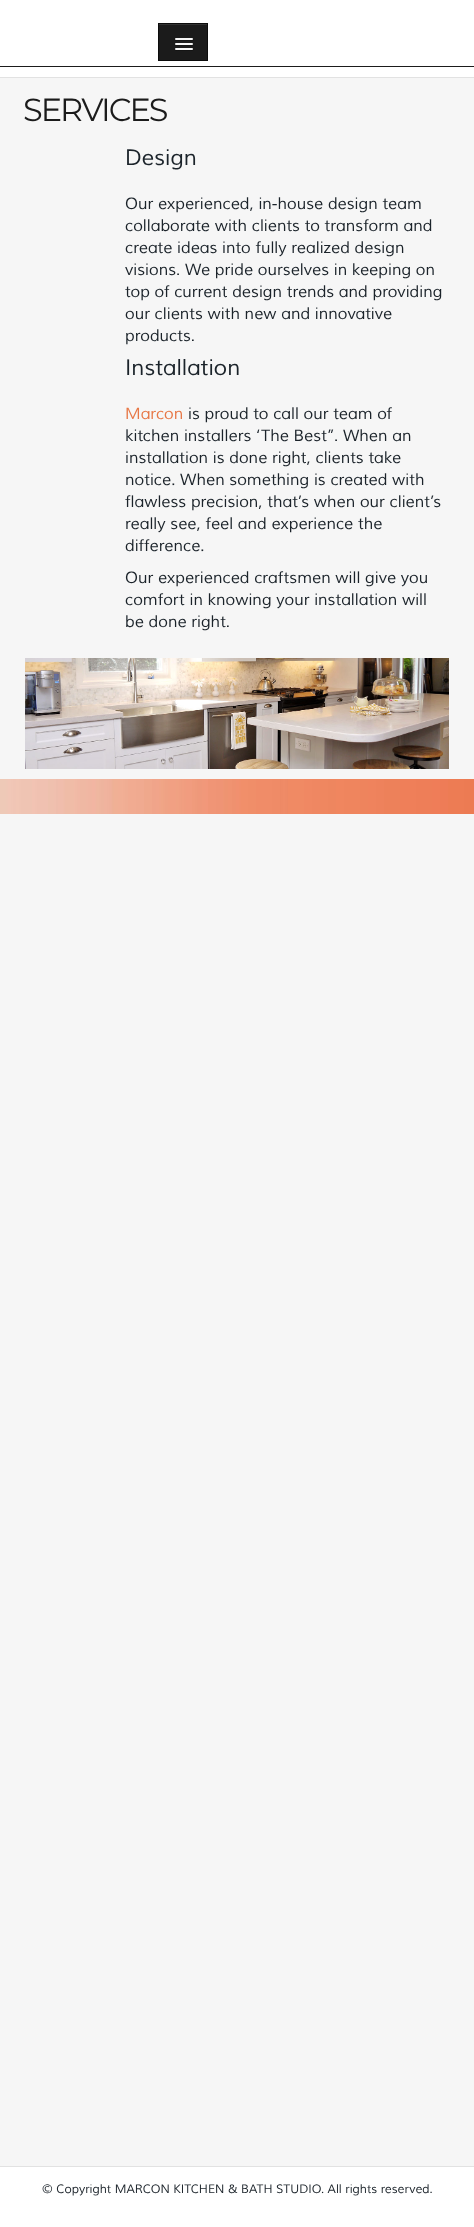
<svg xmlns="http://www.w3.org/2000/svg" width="474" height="2227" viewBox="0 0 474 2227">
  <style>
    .t1 { font: 32px Montserrat; letter-spacing: -2px; fill: #1b1b1b; }
    .t2 { font: italic 22px Muli; fill: #1b232a; }
    .t3 { font: italic 16px Muli; fill: #1b232a; }
    .t4 { font: italic 16px Muli; fill: #e77847; }
    .t5 { font: italic 12px Muli; fill: #1b232a; }
  </style>
  <rect width="100%" height="100%" fill="#f6f6f6"/>
  <rect x="0" y="66" width="474" height="1" fill="#1b1b1b"/>
  <rect x="0" y="0" width="474" height="66" fill="#fff"/>
  <rect x="159" y="25" width="48" height="35" fill="#1b1b1b"/>
  <rect x="159" y="24" width="48" height="1" fill="#323232"/>
  <rect x="158.5" y="23.5" width="49" height="37" fill="none" stroke="#0c0c0c"/>
  <path d="M175 39.5C174 41.5 178.5 41 178.5 41H189.5C189.5 41 194 41.5 193 39.5C192 40.5 185.5 40 184 40C182.5 40 176 40.5 175 39.5Z" fill="#141414"/>
  <rect x="175" y="38" width="18" height="2" rx="1" fill="#f5f5f5"/>
  <path d="M175 44.5C174 46.5 178.5 46 178.5 46H189.5C189.5 46 194 46.5 193 44.5C192 45.5 185.5 45 184 45C182.5 45 176 45.5 175 44.5Z" fill="#141414"/>
  <rect x="175" y="43" width="18" height="2" rx="1" fill="#f5f5f5"/>
  <path d="M175 49.5C174 51.5 178.5 51 178.5 51H189.5C189.5 51 194 51.5 193 49.5C192 50.5 185.5 50 184 50C182.5 50 176 50.5 175 49.5Z" fill="#141414"/>
  <rect x="175" y="48" width="18" height="2" rx="1" fill="#f5f5f5"/>
  <rect x="0" y="67" width="474" height="10" fill="#fff"/>
  <rect x="0" y="77" width="474" height="1" fill="#e2e2e2"/>
  <text x="23" y="121" class="t1">SERVICES</text>
  <text x="125" y="165" class="t2">Design</text>
  <text x="125" y="209" class="t3">Our experienced, in-house design team</text>
  <text x="125" y="231" class="t3">collaborate with clients to transform and</text>
  <text x="125" y="253" class="t3">create ideas into fully realized design</text>
  <text x="125" y="275" class="t3">visions. We pride ourselves in keeping on</text>
  <text x="125" y="297" class="t3">top of current design trends and providing</text>
  <text x="125" y="319" class="t3">our clients with new and innovative</text>
  <text x="125" y="341" class="t3">products.</text>
  <text x="125" y="375" class="t2">Installation</text>
  <text x="125" y="419" class="t4">Marcon</text>
  <text x="188" y="419" class="t3">is proud to call our team of</text>
  <text x="125" y="441" class="t3">kitchen installers ‘The Best”. When an</text>
  <text x="125" y="463" class="t3">installation is done right, clients take</text>
  <text x="125" y="485" class="t3">notice. When something is created with</text>
  <text x="125" y="507" class="t3">flawless precision, that’s when our client’s</text>
  <text x="125" y="529" class="t3">really see, feel and experience the</text>
  <text x="125" y="551" class="t3">difference.</text>
  <text x="125" y="583" class="t3">Our experienced craftsmen will give you</text>
  <text x="125" y="605" class="t3">comfort in knowing your installation will</text>
  <text x="125" y="627" class="t3">be done right.</text>
  <image x="25" y="658" width="424" height="111" href="images/1.png"/>
  <image x="0" y="779" width="474" height="35" href="images/2.png"/>
  <rect x="0" y="2167" width="474" height="60" fill="#fff"/>
  <rect x="0" y="2166" width="474" height="1" fill="#e2e2e2"/>
  <text x="42" y="2193" class="t5">© Copyright MARCON KITCHEN &amp; BATH STUDIO. All rights reserved.</text>
</svg>
